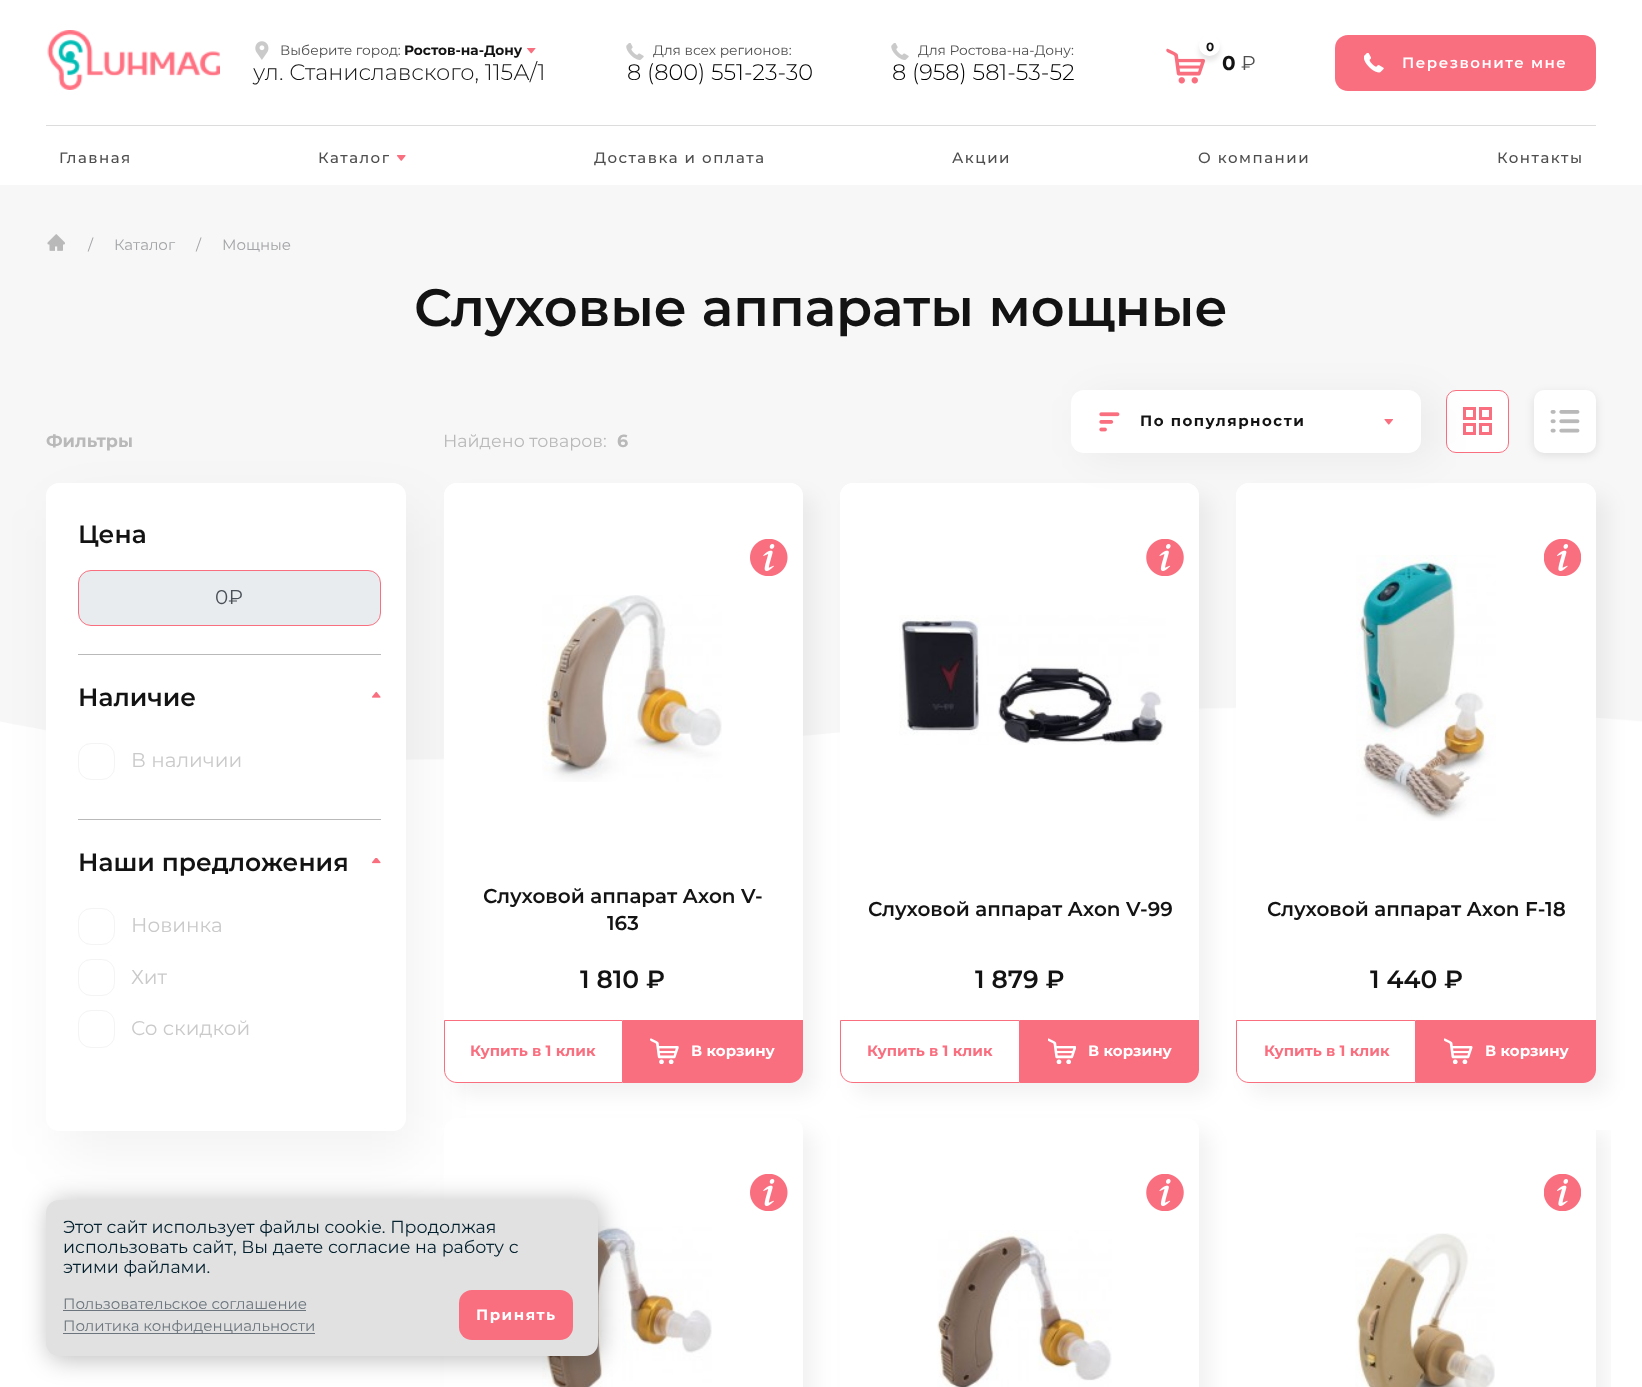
<svg xmlns="http://www.w3.org/2000/svg" width="1642" height="1387" viewBox="0 0 1642 1387">
  <style>
    .t1 { font: 13.75px Montserrat; fill: #4e4e4e; }
    .t2 { font: bold 13.75px Montserrat; fill: #131313; }
    .t3 { font: 300 22.5px Montserrat; fill: #131313; }
    .t4 { font: 300 22.5px Montserrat; fill: #000; }
    .t5 { font: bold 12px Montserrat; fill: #131313; }
    .t6 { font: bold 20px Montserrat; fill: #131313; }
    .t7 { font: 20px Montserrat; fill: #4e4e4e; }
    .t8 { font: 600 15px Montserrat; letter-spacing: 1.5px; fill: #fff; }
    .t9 { font: 500 15px Montserrat; letter-spacing: 1.5px; fill: #4e4e4e; }
    .t10 { font: 15px Montserrat; fill: #a3a4a7; }
    .t11 { font: 600 52.5px Montserrat; fill: #131313; }
    .t12 { font: bold 17.5px Montserrat; fill: #b9b9b9; }
    .t13 { font: 600 25px Montserrat; fill: #131313; }
    .t14 { font: 20px Montserrat; fill: #495057; }
    .t15 { font: 20px Montserrat; fill: #cacaca; }
    .t16 { font: bold 15px Montserrat; letter-spacing: 1.5px; fill: #131313; }
    .t17 { font: 17.5px Montserrat; fill: #b9b9b9; }
    .t18 { font: 600 20px Montserrat; fill: #131313; }
    .t19 { font: bold 15px Montserrat; fill: #f96f7f; }
    .t20 { font: bold 15px Montserrat; fill: #fff; }
    .t21 { font: 17.5px Montserrat; fill: #03202e; }
    .t22 { font: 15px Montserrat; fill: #6c757d; }
    .t23 { font: bold 15px Montserrat; letter-spacing: 1.5px; fill: #fff; }
  </style>
  <defs>
    <clipPath id="clip1"><rect x="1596" y="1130" width="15" height="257"/></clipPath>
  </defs>
  <rect width="100%" height="100%" fill="#fff"/>
  <image x="47" y="30" width="173" height="60" href="images/1.png"/>
  <image x="255" y="41" width="14" height="19" href="images/2.png"/>
  <text x="280" y="55" class="t1">Выберите город:</text>
  <text x="404" y="55" class="t2">Ростов-на-Дону</text>
  <image x="527" y="48" width="9" height="6" href="images/3.png"/>
  <text x="253" y="80" class="t3">ул. Станиславского, 115А/1</text>
  <image x="626" y="43" width="18" height="17" href="images/4.png"/>
  <text x="653" y="55" class="t1">Для всех регионов:</text>
  <text x="627" y="80" class="t4">8 (800) 551-23-30</text>
  <image x="891" y="43" width="18" height="17" href="images/4.png"/>
  <text x="918" y="55" class="t1">Для Ростова-на-Дону:</text>
  <text x="892" y="80" class="t4">8 (958) 581-53-52</text>
  <image x="1166" y="48" width="39" height="36" href="images/5.png"/>
  <rect x="1199" y="40" width="21" height="21" rx="10.5" fill="#0000001a" filter="blur(2.5px)"/>
  <circle cx="1209.5" cy="45.5" r="10.5" fill="#fff"/>
  <text x="1206" y="51" class="t5">0</text>
  <text x="1222" y="70" class="t6">0</text>
  <text x="1241" y="70" class="t7">₽</text>
  <rect x="1335" y="35" width="261" height="56" rx="13" fill="#f96f7f"/>
  <image x="1364" y="53" width="20" height="20" href="images/6.png"/>
  <text x="1402" y="68" class="t8">Перезвоните мне</text>
  <rect x="46" y="125" width="1550" height="1" fill="#dcdcdc"/>
  <text x="59" y="163" class="t9">Главная</text>
  <text x="318" y="163" class="t9">Каталог</text>
  <image x="397" y="155" width="9" height="6" href="images/7.png"/>
  <text x="594" y="163" class="t9">Доставка и оплата</text>
  <text x="952" y="163" class="t9">Акции</text>
  <text x="1198" y="163" class="t9">О компании</text>
  <text x="1497" y="163" class="t9">Контакты</text>
  <rect x="0" y="185" width="1642" height="515" fill="#f7f7f7"/>
  <image x="47" y="234" width="18" height="17" href="images/8.png"/>
  <text x="88" y="250" class="t10">/</text>
  <text x="114" y="250" class="t10">Каталог</text>
  <text x="196" y="250" class="t10">/</text>
  <text x="222" y="250" class="t10">Мощные</text>
  <text x="414" y="326" class="t11">Слуховые аппараты мощные</text>
  <text x="46" y="447" class="t12">Фильтры</text>
  <image x="0" y="700" width="1642" height="60" href="images/26.png"/>
  <rect x="59" y="508" width="360" height="648" rx="13" fill="#0000000d" filter="blur(28px)"/>
  <rect x="46" y="483" width="360" height="648" rx="13" fill="#fff"/>
  <text x="78" y="543" class="t13">Цена</text>
  <rect x="78.5" y="570.5" width="302" height="55" rx="12.5" fill="#e9ecef" stroke="#f96f7f"/>
  <text x="215" y="604" class="t14">0₽</text>
  <rect x="78" y="654" width="303" height="1" fill="#b9b9b9"/>
  <text x="78" y="706" class="t13">Наличие</text>
  <image x="372" y="691" width="9" height="7" href="images/9.png"/>
  <rect x="78.5" y="743.5" width="36" height="36" rx="12.5" fill="none" stroke="#f4f4f4"/>
  <text x="131" y="767" class="t15">В наличии</text>
  <rect x="78" y="819" width="303" height="1" fill="#b9b9b9"/>
  <text x="78" y="871" class="t13">Наши предложения</text>
  <image x="372" y="858" width="9" height="6" href="images/10.png"/>
  <rect x="78.5" y="908.5" width="36" height="36" rx="12.5" fill="none" stroke="#f4f4f4"/>
  <text x="131" y="932" class="t15">Новинка</text>
  <rect x="78.5" y="959.5" width="36" height="36" rx="12.5" fill="none" stroke="#f4f4f4"/>
  <text x="131" y="984" class="t15">Хит</text>
  <rect x="78.5" y="1010.5" width="36" height="37" rx="12.5" fill="none" stroke="#f4f4f4"/>
  <text x="131" y="1035" class="t15">Со скидкой</text>
  <rect x="1446.5" y="390.5" width="62" height="62" rx="9.5" fill="#fff" stroke="#f96f7f"/>
  <rect x="1464.5" y="408.5" width="10" height="10" fill="none" stroke="#f96f7f" stroke-width="3"/>
  <rect x="1480.5" y="408.5" width="10" height="10" fill="none" stroke="#f96f7f" stroke-width="3"/>
  <rect x="1480.5" y="424.5" width="10" height="9" fill="none" stroke="#f96f7f" stroke-width="3"/>
  <rect x="1464.5" y="424.5" width="10" height="9" fill="none" stroke="#f96f7f" stroke-width="3"/>
  <rect x="456" y="495" width="359" height="600" rx="13" fill="#0000000d" filter="blur(9.5px)"/>
  <rect x="853" y="495" width="358" height="600" rx="13" fill="#0000000d" filter="blur(9.5px)"/>
  <rect x="840" y="483" width="359" height="600" rx="13" fill="#fff"/>
  <path d="M853 483H1186C1193 483 1199 489 1199 496V869H840V496C840 489 846 483 853 483Z" fill="#fff"/>
  <rect x="1249" y="495" width="360" height="600" rx="13" fill="#0000000d" filter="blur(9.5px)"/>
  <rect x="1236" y="483" width="360" height="600" rx="13" fill="#fff"/>
  <path d="M1249 483H1583C1590 483 1596 489 1596 496V869H1236V496C1236 489 1242 483 1249 483Z" fill="#fff"/>
  <rect x="1084" y="395" width="350" height="63" rx="13" fill="#0000000d" filter="blur(19px)"/>
  <rect x="1071" y="390" width="350" height="63" rx="13" fill="#fff"/>
  <image x="1099" y="412" width="21" height="20" href="images/11.png"/>
  <text x="1140" y="426" class="t16">По популярности</text>
  <image x="1384" y="419" width="9" height="6" href="images/12.png"/>
  <rect x="1534" y="393" width="62" height="62" rx="10" fill="#0000001a" filter="blur(5px)"/>
  <rect x="1534" y="390" width="62" height="63" rx="10" fill="#fff"/>
  <image x="1550" y="410" width="30" height="23" href="images/13.png"/>
  <text x="443" y="447" class="t17">Найдено товаров:</text>
  <text x="617" y="447" class="t12">6</text>
  <rect x="444" y="483" width="359" height="600" rx="13" fill="#fff"/>
  <path d="M457 483H790C797 483 803 489 803 496V869H444V496C444 489 450 483 457 483Z" fill="#fff"/>
  <image x="750" y="539" width="38" height="37" href="images/14.png"/>
  <image x="542" y="595" width="180" height="187" href="images/15.png"/>
  <text x="483" y="903" class="t18">Слуховой аппарат Axon V-</text>
  <text x="607" y="930" class="t18">163</text>
  <text x="580" y="988" class="t13">1 810 ₽</text>
  <path d="M444.5 1020.5H622.5V1082.5H457C450 1082.5 444.5 1077 444.5 1070Z" fill="none" stroke="#f96f7f"/>
  <text x="470" y="1056" class="t19">Купить в 1 клик</text>
  <path d="M623 1020H803V1070C803 1077 797 1083 790 1083H623Z" fill="#f96f7f"/>
  <image x="650" y="1038" width="29" height="26" href="images/16.png"/>
  <text x="691" y="1056" class="t20">В корзину</text>
  <image x="1146" y="539" width="38" height="37" href="images/17.png"/>
  <image x="899" y="615" width="267" height="130" href="images/18.png"/>
  <text x="868" y="916" class="t18">Слуховой аппарат Axon V-99</text>
  <text x="975" y="988" class="t13">1 879 ₽</text>
  <path d="M840.5 1020.5H1019.5V1082.5H853C846 1082.5 840.5 1077 840.5 1070Z" fill="none" stroke="#f96f7f"/>
  <text x="867" y="1056" class="t19">Купить в 1 клик</text>
  <path d="M1020 1020H1199V1070C1199 1077 1193 1083 1186 1083H1020Z" fill="#f96f7f"/>
  <image x="1048" y="1038" width="28" height="26" href="images/19.png"/>
  <text x="1088" y="1056" class="t20">В корзину</text>
  <image x="1544" y="539" width="37" height="37" href="images/20.png"/>
  <image x="1356" y="555" width="140" height="266" href="images/21.png"/>
  <text x="1267" y="916" class="t18">Слуховой аппарат Axon F-18</text>
  <text x="1370" y="988" class="t13">1 440 ₽</text>
  <path d="M1236.5 1020.5H1415.5V1082.5H1249C1242 1082.5 1236.5 1077 1236.5 1070Z" fill="none" stroke="#f96f7f"/>
  <text x="1264" y="1056" class="t19">Купить в 1 клик</text>
  <path d="M1416 1020H1596V1070C1596 1077 1590 1083 1583 1083H1416Z" fill="#f96f7f"/>
  <image x="1444" y="1038" width="29" height="26" href="images/22.png"/>
  <text x="1485" y="1056" class="t20">В корзину</text>
  <rect x="456" y="1130" width="359" height="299" rx="13" fill="#0000000d" filter="blur(9.5px)"/>
  <rect x="444" y="1118" width="359" height="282" rx="13" fill="#fff"/>
  <image x="750" y="1174" width="38" height="37" href="images/14.png"/>
  <image x="542" y="1226" width="170" height="161" href="images/23.png"/>
  <rect x="853" y="1130" width="358" height="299" rx="13" fill="#0000000d" filter="blur(9.5px)"/>
  <rect x="840" y="1118" width="359" height="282" rx="13" fill="#fff"/>
  <image x="1146" y="1174" width="38" height="37" href="images/17.png"/>
  <image x="937" y="1230" width="175" height="157" href="images/24.png"/>
  <g clip-path="url(#clip1)">
    <rect x="1249" y="1130" width="360" height="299" rx="13" fill="#0000000d" filter="blur(9.5px)"/>
  </g>
  <image x="1544" y="1174" width="37" height="37" href="images/20.png"/>
  <image x="1355" y="1233" width="140" height="154" href="images/25.png"/>
  <rect x="48" y="1201" width="553" height="159" rx="14" fill="#00000040" filter="blur(12.5px)"/>
  <rect x="46" y="1200" width="552" height="156" rx="13" fill="#e1e1e1"/>
  <text x="63" y="1233" class="t21">Этот сайт использует файлы cookie. Продолжая</text>
  <text x="63" y="1253" class="t21">использовать сайт, Вы даете согласие на работу с</text>
  <text x="63" y="1273" class="t21">этими файлами.</text>
  <text x="63" y="1309" class="t22">Пользовательское соглашение</text>
  <rect x="63" y="1310" width="243" height="1" fill="#6c757d"/>
  <rect x="63" y="1333" width="252" height="1" fill="#6c757d"/>
  <text x="63" y="1331" class="t22">Политика конфиденциальности</text>
  <rect x="459" y="1290" width="114" height="50" rx="13" fill="#f96f7f"/>
  <text x="476" y="1320" class="t23">Принять</text>
</svg>
